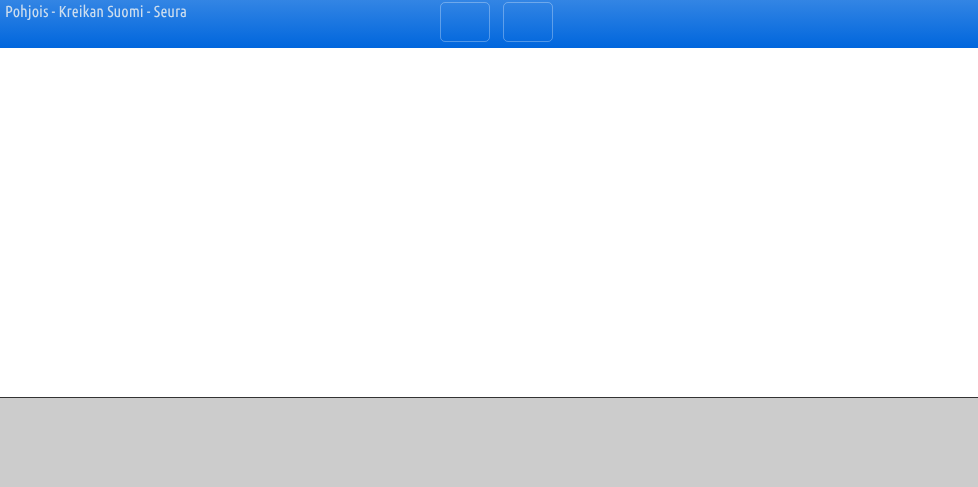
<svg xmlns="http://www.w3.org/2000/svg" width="978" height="487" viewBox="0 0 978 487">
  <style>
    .t1 { font: 16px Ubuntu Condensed; fill: #cde; }
  </style>
  <defs>
    <linearGradient id="g1" gradientUnits="userSpaceOnUse" x1="489" y1="0" x2="489" y2="48"><stop offset="0" stop-color="#3385e4"/><stop offset="1" stop-color="#06d"/></linearGradient>
  </defs>
  <rect width="100%" height="100%" fill="#fff"/>
  <rect x="0" y="0" width="978" height="48" fill="url(#g1)"/>
  <text x="5" y="17" class="t1">Pohjois - Kreikan Suomi - Seura</text>
  <rect x="440.5" y="2.5" width="49" height="39" rx="4.5" fill="none" stroke="#ffffff4d"/>
  <rect x="503.5" y="2.5" width="49" height="39" rx="4.5" fill="none" stroke="#ffffff4d"/>
  <rect x="0" y="398" width="978" height="89" fill="#ccc"/>
  <rect x="0" y="397" width="978" height="1" fill="#333"/>
</svg>
